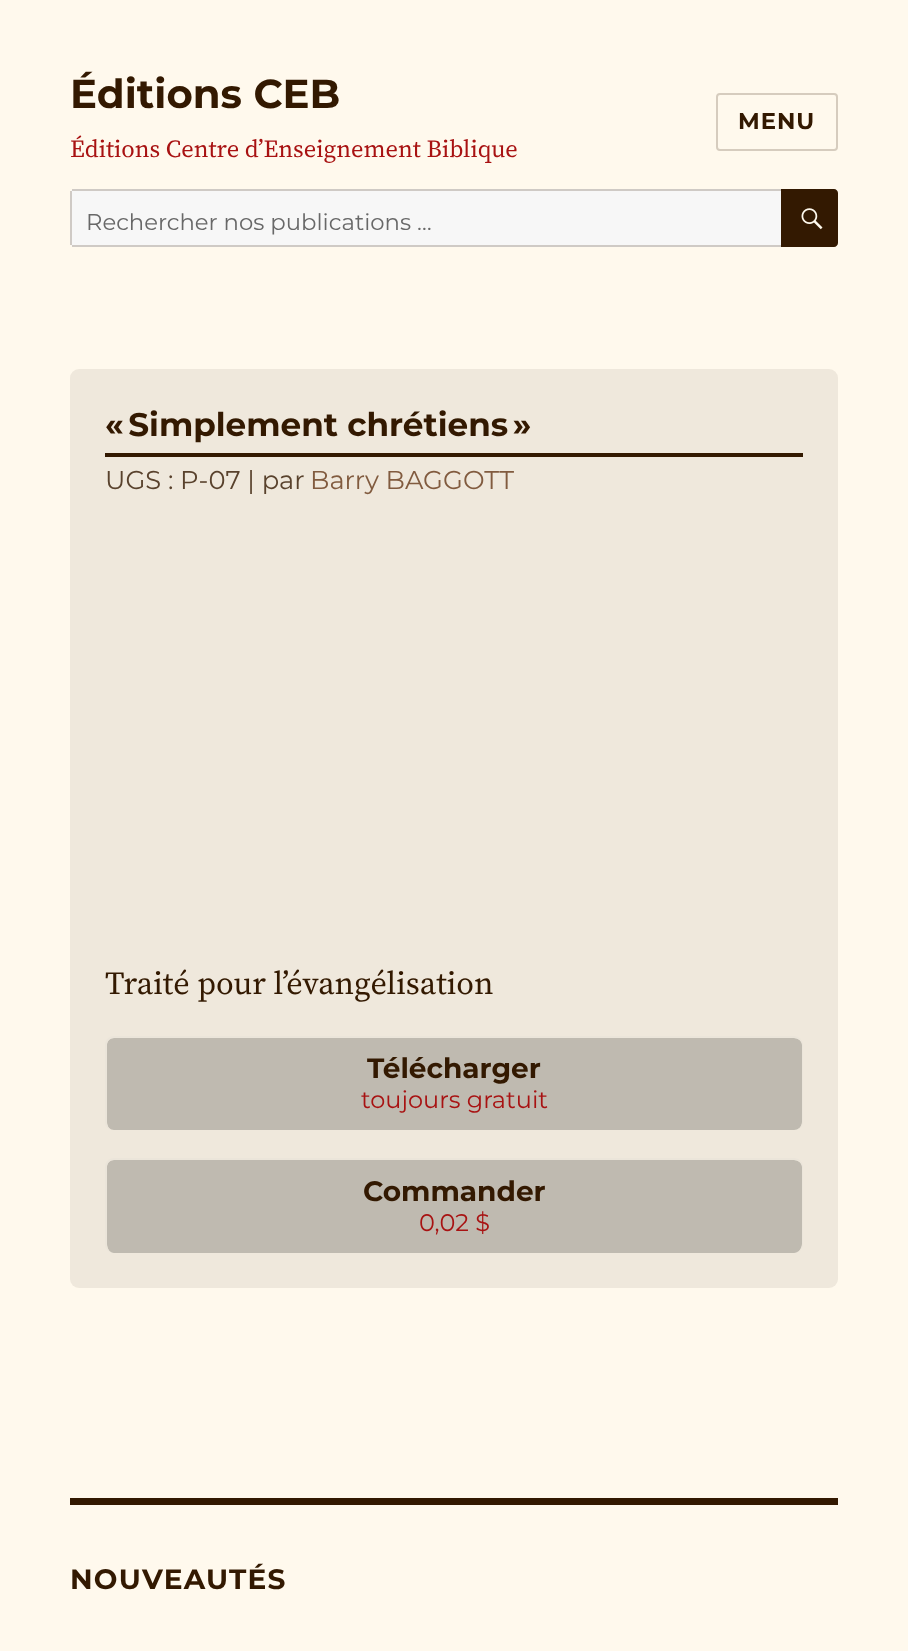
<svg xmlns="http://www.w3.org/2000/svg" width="908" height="1651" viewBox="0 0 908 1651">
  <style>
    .t1 { font: bold 40.25px Montserrat; fill: #331901; }
    .t2 { font: 24.5px 'Source Serif 4'; fill: #a81212; }
    .t3 { font: bold 22.75px Montserrat; letter-spacing: 1px; fill: #331901; }
    .t4 { font: 22.75px Montserrat; fill: #686868; }
    .t5 { font: bold 32.7px Montserrat; fill: #331901; }
    .t6 { font: 25.75px Montserrat; fill: #59422d; }
    .t7 { font: 25.75px Montserrat; fill: #815b3f; }
    .t8 { font: 32.25px 'Source Serif 4'; fill: #331901; }
    .t9 { font: bold 28px Montserrat; fill: #331901; }
    .t10 { font: 24px Montserrat; fill: #a81212; }
    .t11 { font: bold 28px Montserrat; letter-spacing: 1.25px; fill: #331901; }
  </style>
  <rect width="100%" height="100%" fill="#fff9ed"/>
  <text x="70" y="108" class="t1">Éditions CEB</text>
  <text x="70" y="157" class="t2">Éditions Centre d’Enseignement Biblique</text>
  <rect x="717" y="94" width="120" height="56" rx="3" fill="none" stroke="#d6ccbe" stroke-width="2"/>
  <text x="738" y="129" class="t3">MENU</text>
  <path d="M74 189H781V247H74C72 247 70 245 70 243V193C70 191 72 189 74 189Z" fill="#f7f7f7"/>
  <rect x="72" y="189" width="709" height="2" fill="#33190133"/>
  <rect x="72" y="245" width="709" height="2" fill="#33190133"/>
  <rect x="70" y="191" width="2" height="54" fill="#33190133"/>
  <text x="86" y="230" class="t4">Rechercher nos publications …</text>
  <path d="M781 189H834C836 189 838 191 838 193V243C838 245 836 247 834 247H781Z" fill="#331901"/>
  <image x="801" y="208" width="22" height="22" href="images/1.png"/>
  <rect x="70" y="369" width="768" height="919" rx="9" fill="#36261714"/>
  <rect x="105" y="453" width="698" height="4" fill="#331901"/>
  <text x="105" y="436" class="t5">« Simplement chrétiens »</text>
  <text x="105" y="489" class="t6">UGS : P-07 | par</text>
  <text x="310" y="489" class="t7">Barry BAGGOTT</text>
  <text x="105" y="994" class="t8">Traité pour l’évangélisation</text>
  <path d="M114 1038H794C798 1038 802 1041 802 1045V1122C802 1127 798 1130 794 1130H114C110 1130 107 1127 107 1122V1045C107 1041 110 1038 114 1038Z" fill="#bfbab0"/>
  <path d="M114 1036H794C799 1036 803 1040 803 1045V1122C803 1127 799 1130 794 1130H114C109 1130 105 1127 105 1122V1045C105 1040 109 1036 114 1036ZM114 1038H794C798 1038 802 1041 802 1045V1122C802 1127 798 1130 794 1130H114C110 1130 107 1127 107 1122V1045C107 1041 110 1038 114 1038Z" fill="#ebe5da" fill-rule="evenodd"/>
  <text x="367" y="1078" class="t9">Télécharger</text>
  <text x="361" y="1108" class="t10">toujours gratuit</text>
  <path d="M114 1160H794C798 1160 802 1163 802 1167V1244C802 1249 798 1253 794 1253H114C110 1253 107 1249 107 1244V1167C107 1163 110 1160 114 1160Z" fill="#bfbab0"/>
  <path d="M114 1158H794C799 1158 803 1162 803 1167V1244C803 1249 799 1253 794 1253H114C109 1253 105 1249 105 1244V1167C105 1162 109 1158 114 1158ZM114 1160H794C798 1160 802 1163 802 1167V1244C802 1249 798 1253 794 1253H114C110 1253 107 1249 107 1244V1167C107 1163 110 1160 114 1160Z" fill="#ebe5da" fill-rule="evenodd"/>
  <text x="363" y="1201" class="t9">Commander</text>
  <text x="419" y="1231" class="t10">0,02 $</text>
  <rect x="70" y="1498" width="768" height="7" fill="#331901"/>
  <text x="70" y="1589" class="t11">NOUVEAUTÉS</text>
</svg>
